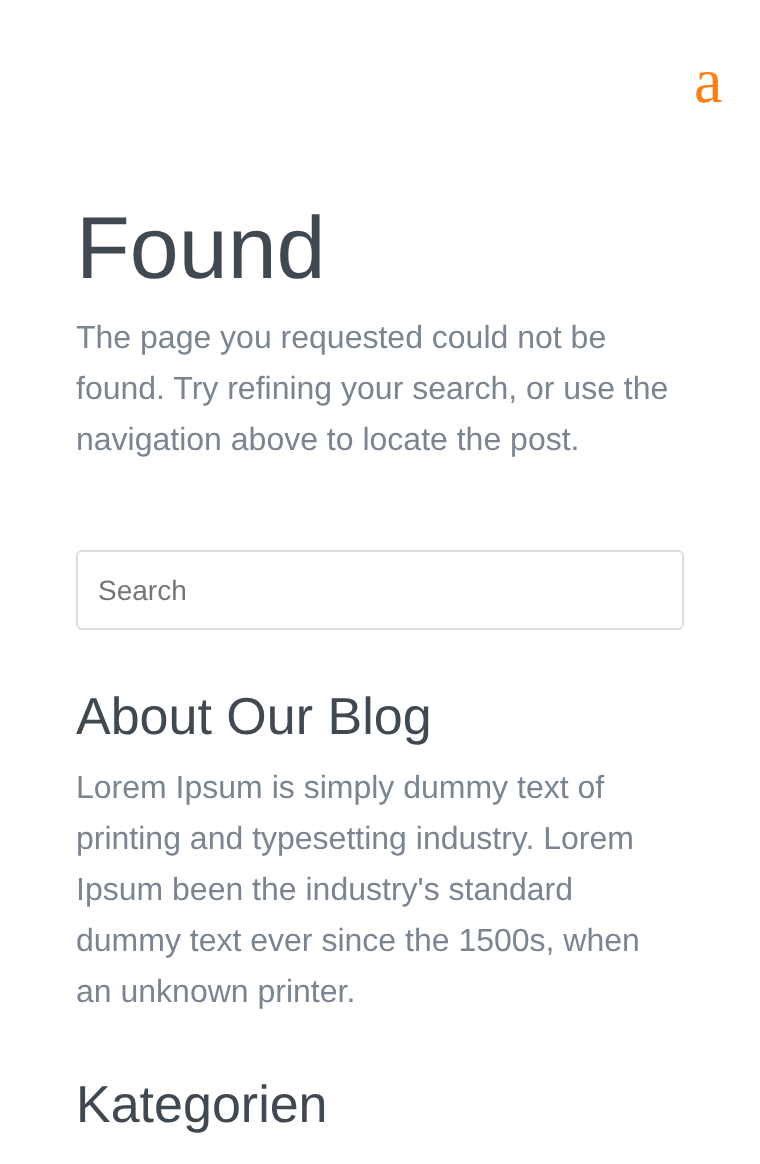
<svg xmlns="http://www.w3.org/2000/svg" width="760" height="1164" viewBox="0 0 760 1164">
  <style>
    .t1 { font: 64px Liberation Serif; fill: #ff8011; }
    .t2 { font: 88px Liberation Sans; fill: #404852; }
    .t3 { font: 32px Liberation Sans; fill: #7b8591; }
    .t4 { font: 28px Liberation Sans; fill: #757575; }
    .t5 { font: 52px Liberation Sans; fill: #404852; }
  </style>
  <rect width="100%" height="100%" fill="#fff"/>
  <text x="694" y="102" class="t1">a</text>
  <text x="76" y="278" class="t2">Found</text>
  <text x="76" y="348" class="t3">The page you requested could not be</text>
  <text x="76" y="399" class="t3">found. Try refining your search, or use the</text>
  <text x="76" y="450" class="t3">navigation above to locate the post.</text>
  <rect x="77" y="551" width="606" height="78" rx="5" fill="none" stroke="#ddd" stroke-width="2"/>
  <text x="98" y="600" class="t4">Search</text>
  <text x="76" y="734" class="t5">About Our Blog</text>
  <text x="76" y="798" class="t3">Lorem Ipsum is simply dummy text of</text>
  <text x="76" y="849" class="t3">printing and typesetting industry. Lorem</text>
  <text x="76" y="900" class="t3">Ipsum been the industry's standard</text>
  <text x="76" y="951" class="t3">dummy text ever since the 1500s, when</text>
  <text x="76" y="1002" class="t3">an unknown printer.</text>
  <text x="76" y="1122" class="t5">Kategorien</text>
</svg>
